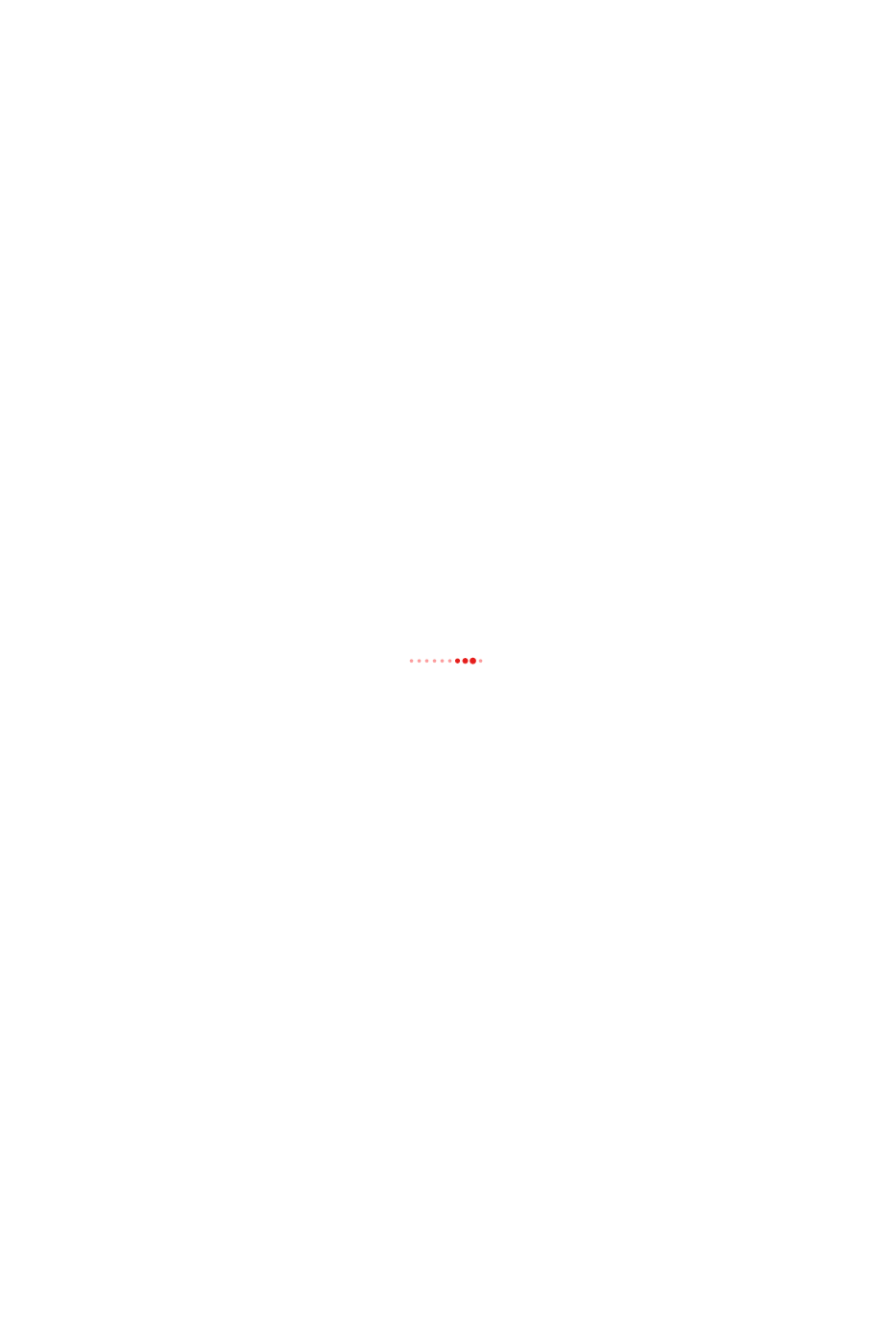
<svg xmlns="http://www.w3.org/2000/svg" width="891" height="1322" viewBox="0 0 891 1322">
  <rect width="100%" height="100%" fill="#fff"/>
  <image x="409" y="657" width="74" height="8" href="images/1.png"/>
</svg>
